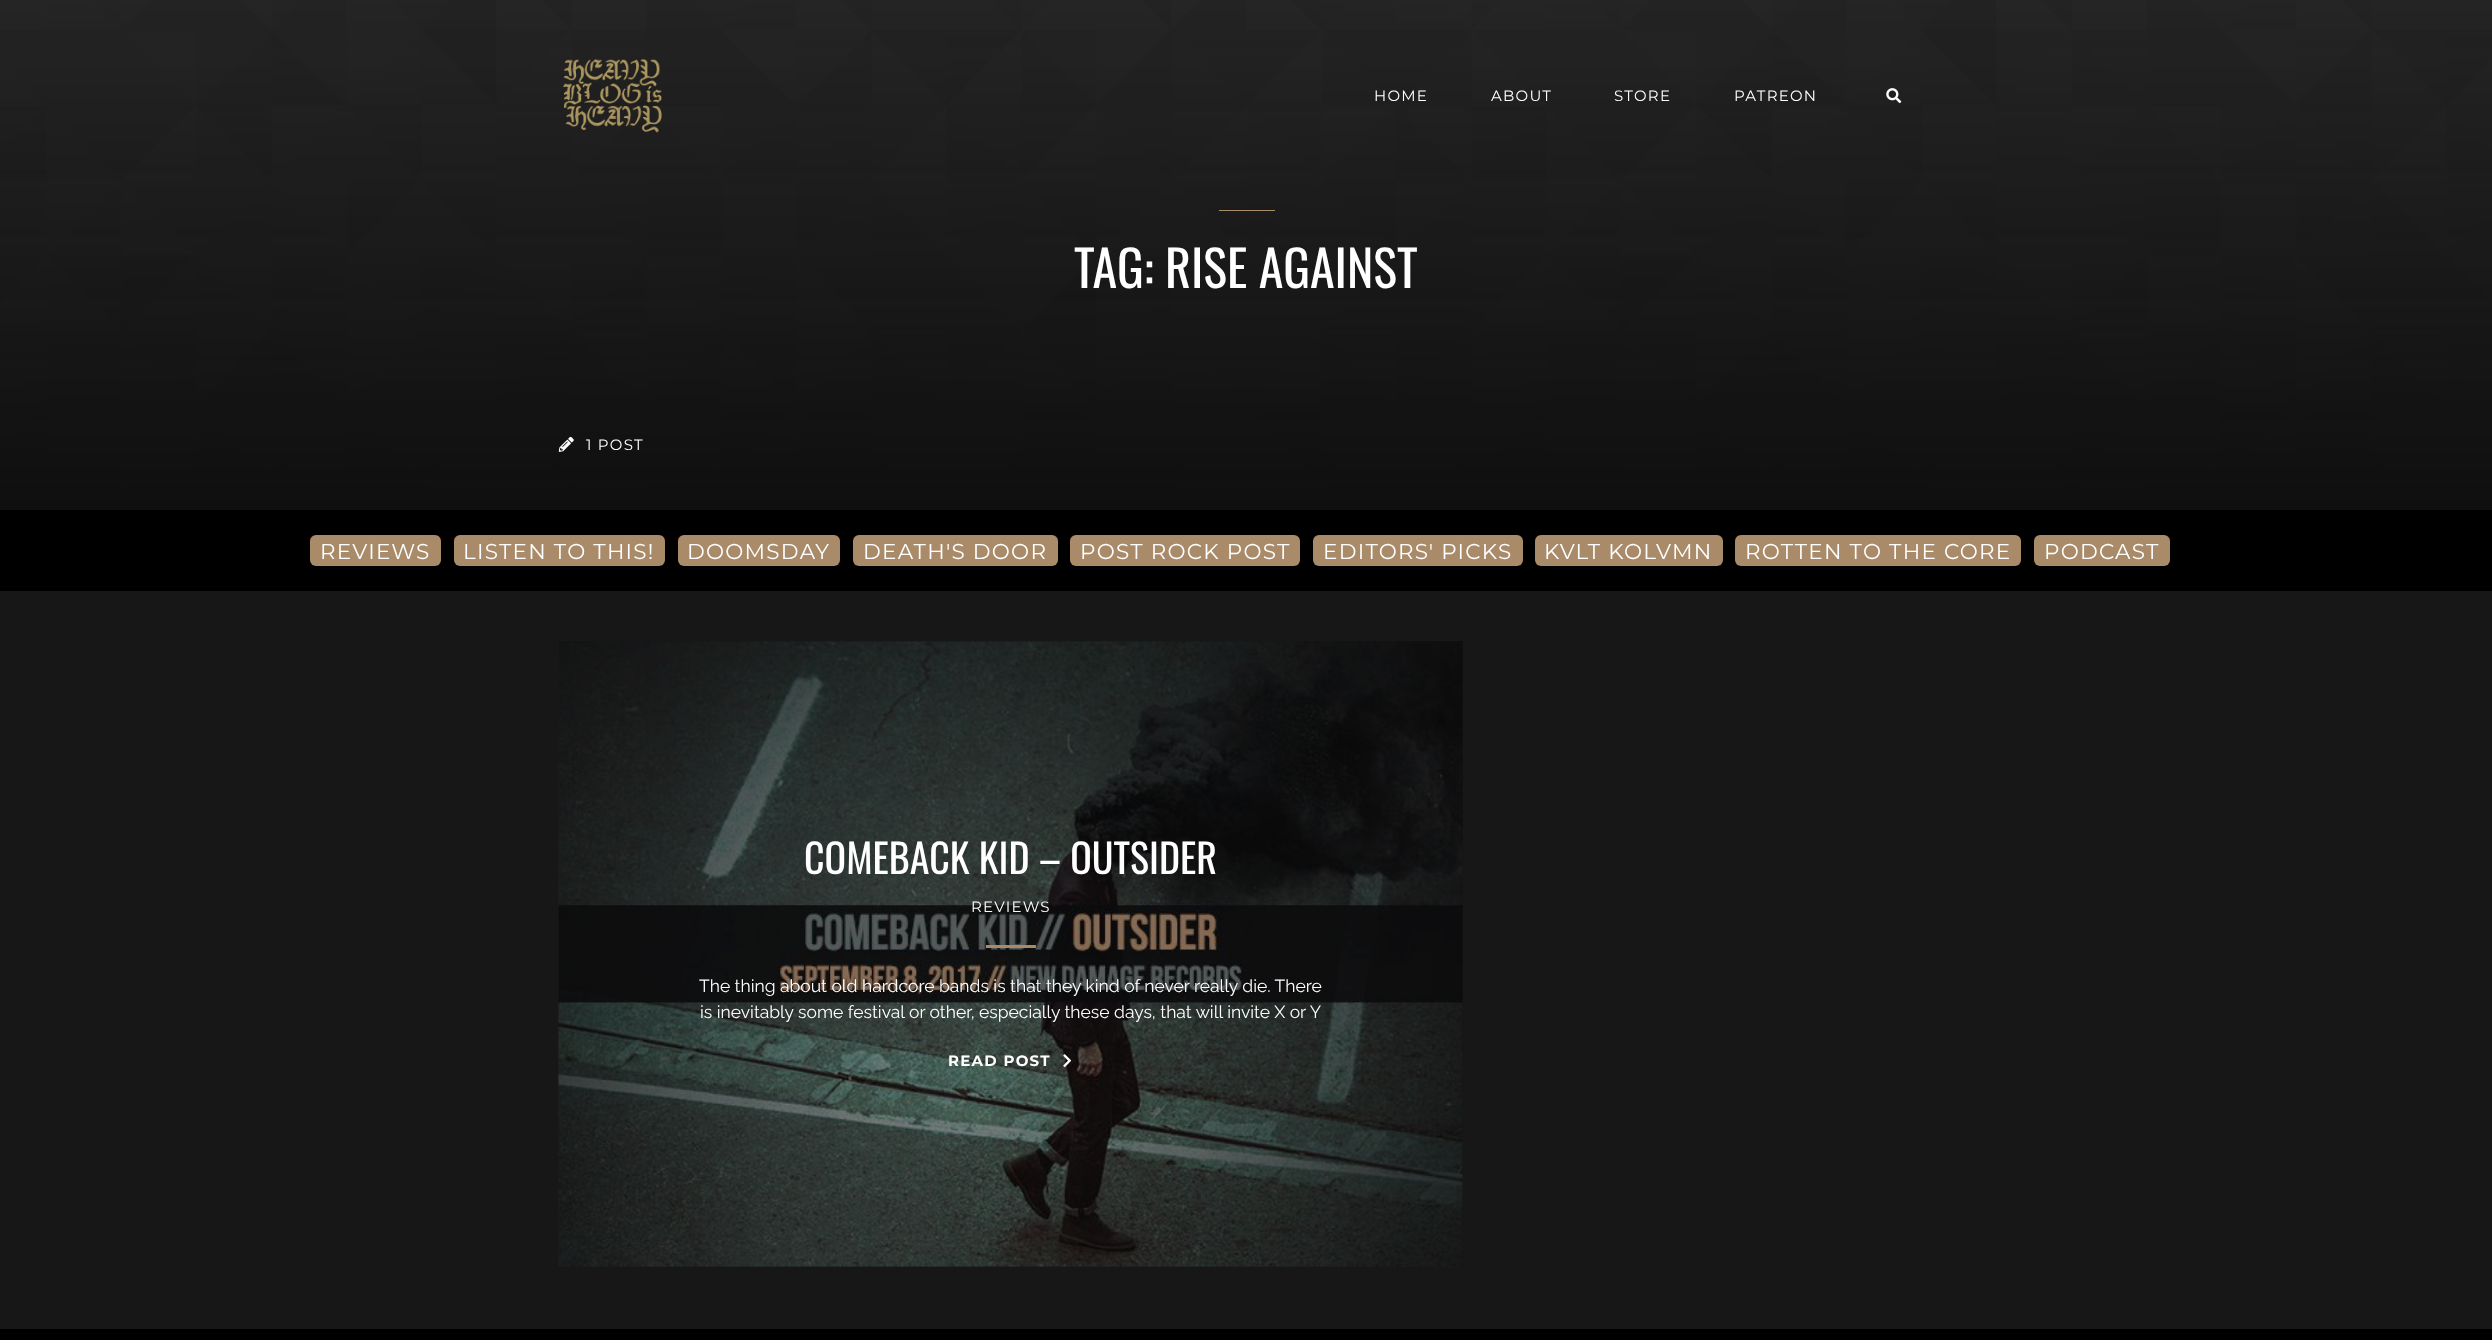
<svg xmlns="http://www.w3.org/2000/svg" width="2492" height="1340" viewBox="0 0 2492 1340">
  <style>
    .t1 { font: 15px Montserrat; letter-spacing: 1.25px; fill: #fff; }
    .t2 { font: 50px Oswald; fill: #fff; }
    .t3 { font: 21.5px Montserrat; letter-spacing: 1.25px; fill: #fff; }
    .t4 { font: 40px Oswald; fill: #fff; }
    .t5 { font: 17.5px Raleway; fill: #fff; }
    .t6 { font: bold 15px Montserrat; letter-spacing: 1.25px; fill: #fff; }
  </style>
  <rect width="100%" height="100%" fill="#171717"/>
  <rect x="559" y="641" width="904" height="625" fill="#131313"/>
  <image x="0" y="0" width="2492" height="510" href="images/3.png"/>
  <image x="563" y="58" width="99" height="75" href="images/1.png"/>
  <text x="1374" y="101" class="t1">HOME</text>
  <text x="1491" y="101" class="t1">ABOUT</text>
  <text x="1614" y="101" class="t1">STORE</text>
  <text x="1734" y="101" class="t1">PATREON</text>
  <image x="1886" y="88" width="16" height="16" href="images/2.png"/>
  <rect x="1219" y="210" width="56" height="1" fill="#a98b69"/>
  <text x="1074" y="288" class="t2">TAG: RISE AGAINST</text>
  <image x="558" y="436" width="16" height="16" href="images/4.png"/>
  <text x="586" y="450" class="t1">1 POST</text>
  <rect x="0" y="510" width="2492" height="81" fill="#000"/>
  <rect x="310" y="535" width="131" height="31" rx="6" fill="#a98b69"/>
  <text x="320" y="559" class="t3">REVIEWS</text>
  <rect x="454" y="535" width="211" height="31" rx="6" fill="#a98b69"/>
  <text x="463" y="559" class="t3">LISTEN TO THIS!</text>
  <rect x="678" y="535" width="162" height="31" rx="6" fill="#a98b69"/>
  <text x="687" y="559" class="t3">DOOMSDAY</text>
  <rect x="853" y="535" width="205" height="31" rx="6" fill="#a98b69"/>
  <text x="863" y="559" class="t3">DEATH'S DOOR</text>
  <rect x="1070" y="535" width="230" height="31" rx="6" fill="#a98b69"/>
  <text x="1080" y="559" class="t3">POST ROCK POST</text>
  <rect x="1313" y="535" width="210" height="31" rx="6" fill="#a98b69"/>
  <text x="1323" y="559" class="t3">EDITORS' PICKS</text>
  <rect x="1535" y="535" width="188" height="31" rx="6" fill="#a98b69"/>
  <text x="1544" y="559" class="t3">KVLT KOLVMN</text>
  <rect x="1735" y="535" width="286" height="31" rx="6" fill="#a98b69"/>
  <text x="1745" y="559" class="t3">ROTTEN TO THE CORE</text>
  <rect x="2034" y="535" width="136" height="31" rx="6" fill="#a98b69"/>
  <text x="2044" y="559" class="t3">PODCAST</text>
  <image x="558" y="641" width="905" height="626" href="images/5.png"/>
  <text x="804" y="874" class="t4">COMEBACK KID – OUTSIDER</text>
  <text x="971" y="912" class="t1">REVIEWS</text>
  <rect x="986" y="945" width="50" height="3" fill="#a98b69"/>
  <text x="699" y="992" class="t5">The thing about old hardcore bands is that they kind of never really die. There</text>
  <text x="700" y="1018" class="t5">is inevitably some festival or other, especially these days, that will invite X or Y</text>
  <text x="948" y="1066" class="t6">READ POST</text>
  <image x="1063" y="1054" width="8" height="13" href="images/6.png"/>
  <rect x="0" y="1329" width="2492" height="11" fill="#000"/>
</svg>
